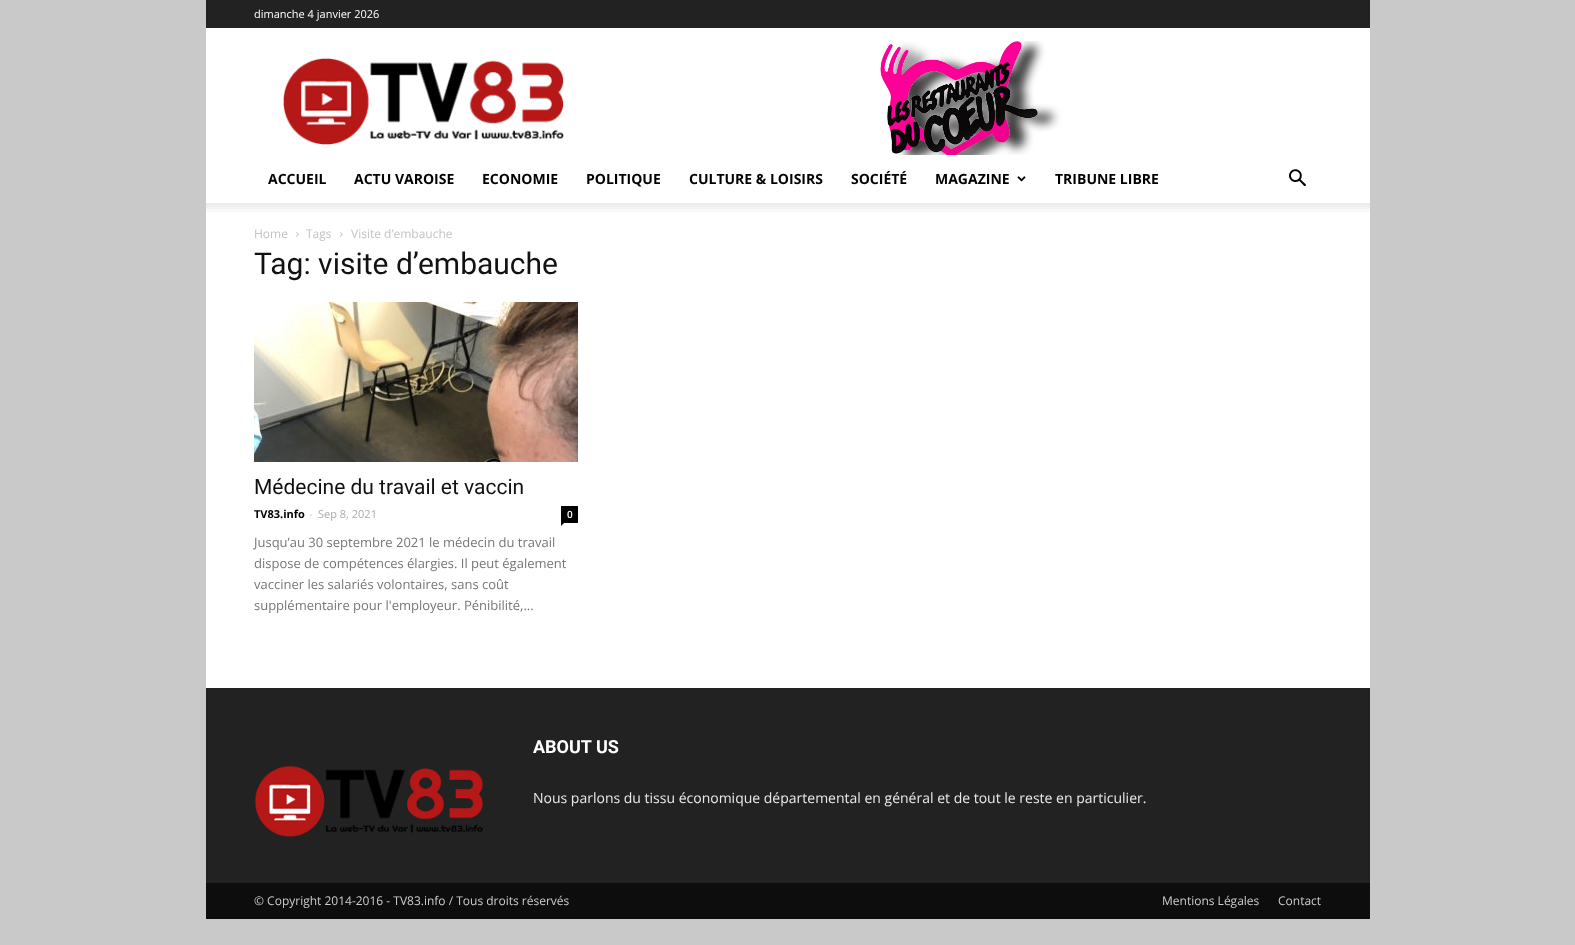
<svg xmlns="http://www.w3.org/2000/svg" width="1575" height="945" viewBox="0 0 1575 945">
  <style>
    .t1 { font: 11px Open Sans; fill: #fff; }
    .t2 { font: bold 14px Open Sans; fill: #000; }
    .t3 { font: 12px Open Sans; fill: #c3c3c3; }
    .t4 { font: 30px Roboto; fill: #111; }
    .t5 { font: 21px Roboto; fill: #111; }
    .t6 { font: bold 11px Open Sans; fill: #000; }
    .t7 { font: 11px Open Sans; fill: #ccc; }
    .t8 { font: 11px Open Sans; fill: #aaa; }
    .t9 { font: 600 10px Open Sans; fill: #fff; }
    .t10 { font: 13px Open Sans; fill: #777; }
    .t11 { font: bold 18px Roboto; fill: #fff; }
    .t12 { font: 14px Open Sans; fill: #eaeaea; }
    .t13 { font: 12px Open Sans; fill: #ccc; }
  </style>
  <rect width="100%" height="100%" fill="#c9c9c9"/>
  <rect x="206" y="0" width="1164" height="28" fill="#222"/>
  <text x="254" y="18" class="t1">dimanche 4 janvier 2026</text>
  <rect x="206" y="28" width="1164" height="175" fill="#fff"/>
  <image x="283" y="58" width="281" height="87" href="images/1.png"/>
  <image x="811" y="41" width="293" height="114" href="images/2.png"/>
  <text x="268" y="184" class="t2">ACCUEIL</text>
  <text x="354" y="184" class="t2">ACTU VAROISE</text>
  <text x="482" y="184" class="t2">ECONOMIE</text>
  <text x="586" y="184" class="t2">POLITIQUE</text>
  <text x="689" y="184" class="t2">CULTURE &amp; LOISIRS</text>
  <text x="851" y="184" class="t2">SOCIÉTÉ</text>
  <text x="935" y="184" class="t2">MAGAZINE</text>
  <image x="1017" y="176" width="9" height="6" href="images/3.png"/>
  <text x="1055" y="184" class="t2">TRIBUNE LIBRE</text>
  <image x="1289" y="169" width="17" height="18" href="images/4.png"/>
  <rect x="206" y="203" width="1164" height="485" fill="#fff"/>
  <image x="206" y="203" width="1164" height="9" href="images/5.png"/>
  <text x="254" y="238" class="t3">Home</text>
  <image x="296" y="232" width="3" height="5" href="images/6.png"/>
  <text x="306" y="238" class="t3">Tags</text>
  <image x="340" y="232" width="3" height="5" href="images/6.png"/>
  <text x="351" y="238" class="t3">Visite d’embauche</text>
  <text x="254" y="274" class="t4">Tag: visite d’embauche</text>
  <image x="254" y="302" width="324" height="160" href="images/7.png"/>
  <text x="254" y="494" class="t5">Médecine du travail et vaccin</text>
  <text x="254" y="518" class="t6">TV83.info</text>
  <text x="309" y="518" class="t7">-</text>
  <text x="318" y="518" class="t8">Sep 8, 2021</text>
  <rect x="561" y="506" width="17" height="17" fill="#000"/>
  <text x="567" y="518" class="t9">0</text>
  <path d="M561 523H564L561 526Z" fill="#000"/>
  <text x="254" y="547" class="t10">Jusqu’au 30 septembre 2021 le médecin du travail</text>
  <text x="254" y="568" class="t10">dispose de compétences élargies. Il peut également</text>
  <text x="254" y="589" class="t10">vacciner les salariés volontaires, sans coût</text>
  <text x="254" y="610" class="t10">supplémentaire pour l'employeur. Pénibilité,...</text>
  <rect x="206" y="688" width="1164" height="195" fill="#222"/>
  <image x="254" y="765" width="229" height="72" href="images/8.png"/>
  <text x="533" y="753" class="t11">ABOUT US</text>
  <text x="533" y="803" class="t12">Nous parlons du tissu économique départemental en général et de tout le reste en particulier.</text>
  <rect x="206" y="883" width="1164" height="36" fill="#0d0d0d"/>
  <text x="254" y="905" class="t13">© Copyright 2014-2016 - TV83.info / Tous droits réservés</text>
  <text x="1162" y="905" class="t13">Mentions Légales</text>
  <text x="1278" y="905" class="t13">Contact</text>
</svg>
